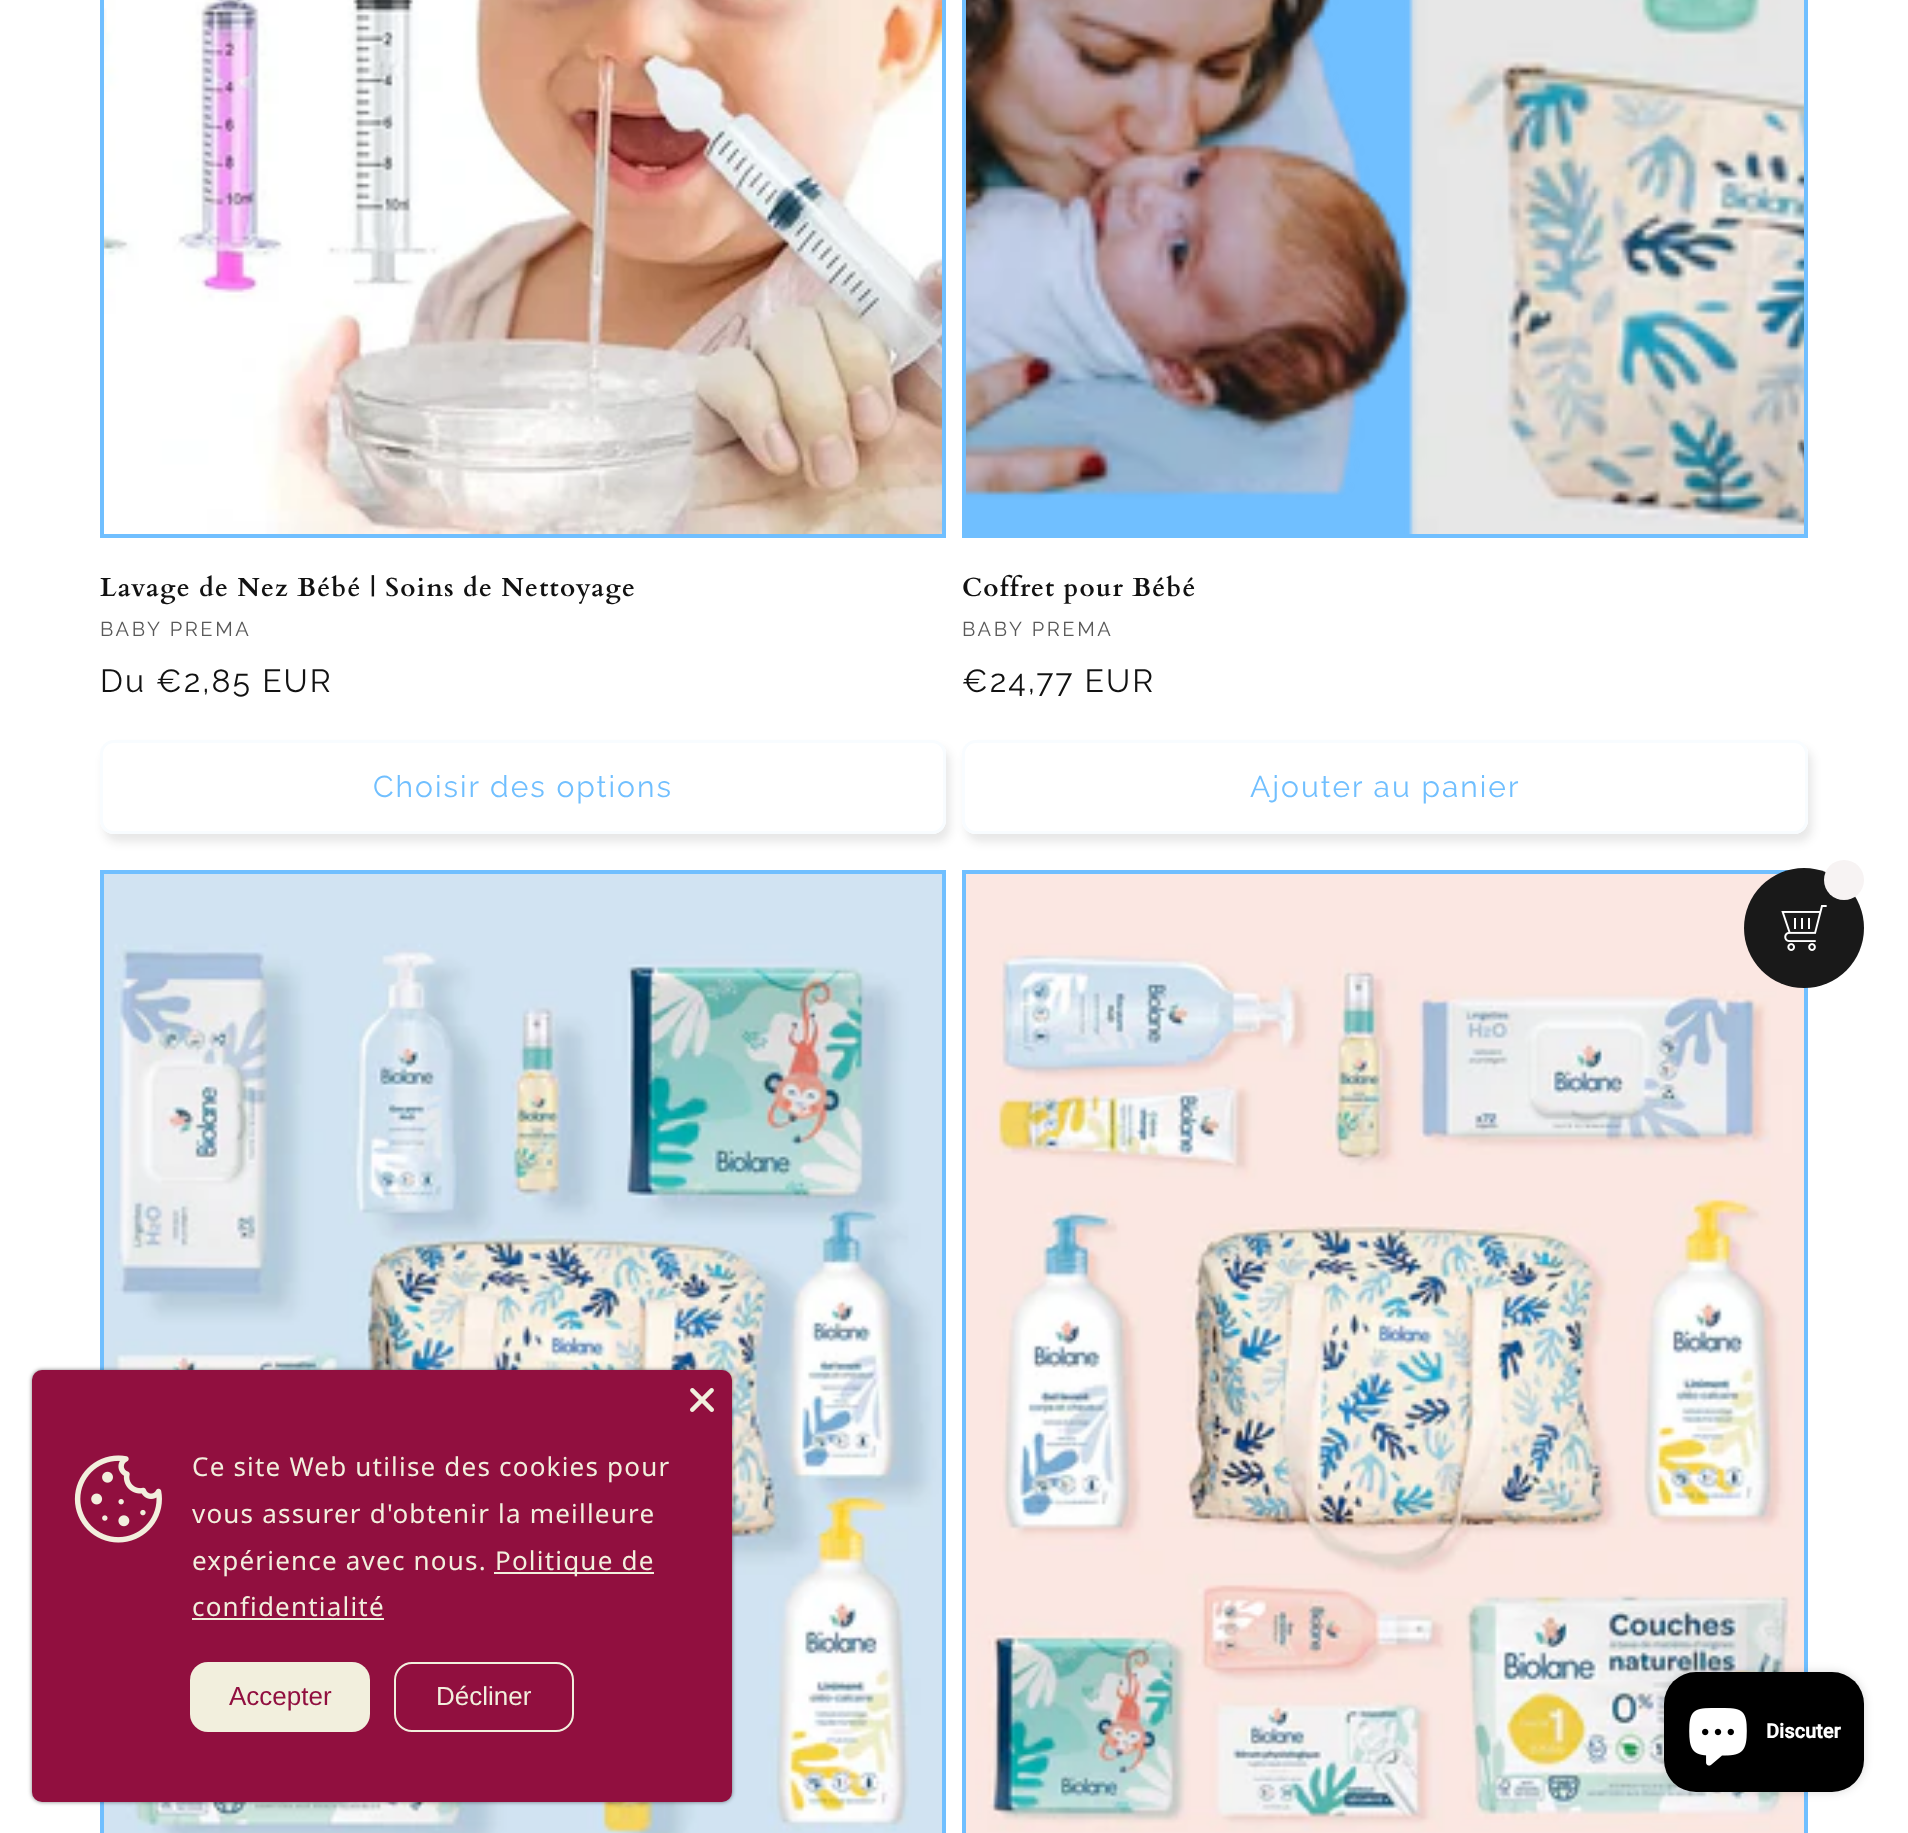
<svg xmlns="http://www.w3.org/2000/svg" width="1908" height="1833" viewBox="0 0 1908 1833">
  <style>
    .t1 { font: bold 26px Cardo; letter-spacing: 1.2px; fill: #121212; }
    .t2 { font: 20px Raleway; letter-spacing: 2.6px; fill: #595959; }
    .t3 { font: 32px Raleway; letter-spacing: 2px; fill: #121212; }
    .t4 { font: 30px Raleway; letter-spacing: 2px; fill: #70bfff; }
    .t5 { font: 26px Noto Sans; letter-spacing: 1.2px; fill: #f2efdd; }
    .t6 { font: 26px Liberation Sans; fill: #910f3f; }
    .t7 { font: 26px Liberation Sans; fill: #f2efdd; }
    .t8 { font: bold 20px Roboto; fill: #fff; }
  </style>
  <rect width="100%" height="100%" fill="#fff"/>
  <rect x="100" y="0" width="846" height="538" fill="#70bfff"/>
  <image x="104" y="0" width="838" height="534" href="images/1.png"/>
  <text x="100" y="596" class="t1">Lavage de Nez Bébé | Soins de Nettoyage</text>
  <text x="100" y="636" class="t2">BABY PREMA</text>
  <text x="100" y="692" class="t3">Du €2,85 EUR</text>
  <rect x="104" y="748" width="846" height="94" rx="14" fill="#1212121a" filter="blur(5px)"/>
  <rect x="100" y="740" width="846" height="94" rx="14" fill="#fff"/>
  <rect x="101" y="741" width="844" height="92" rx="13" fill="none" stroke="#fff" stroke-width="2"/>
  <rect x="101.5" y="741.5" width="843" height="91" rx="12.5" fill="none" stroke="#f8fcff" stroke-width="3"/>
  <text x="373" y="797" class="t4">Choisir des options</text>
  <rect x="962" y="0" width="846" height="538" fill="#70bfff"/>
  <image x="966" y="0" width="838" height="534" href="images/2.png"/>
  <text x="962" y="596" class="t1">Coffret pour Bébé</text>
  <text x="962" y="636" class="t2">BABY PREMA</text>
  <text x="962" y="692" class="t3">€24,77 EUR</text>
  <rect x="966" y="748" width="846" height="94" rx="14" fill="#1212121a" filter="blur(5px)"/>
  <rect x="962" y="740" width="846" height="94" rx="14" fill="#fff"/>
  <rect x="963" y="741" width="844" height="92" rx="13" fill="none" stroke="#fff" stroke-width="2"/>
  <rect x="963.5" y="741.5" width="843" height="91" rx="12.5" fill="none" stroke="#f8fcff" stroke-width="3"/>
  <text x="1250" y="797" class="t4">Ajouter au panier</text>
  <rect x="100" y="870" width="846" height="963" fill="#70bfff"/>
  <image x="104" y="874" width="838" height="959" href="images/3.png"/>
  <rect x="962" y="870" width="846" height="963" fill="#70bfff"/>
  <image x="966" y="874" width="838" height="959" href="images/4.png"/>
  <circle cx="1804" cy="928" r="60" fill="#191919"/>
  <circle cx="1844" cy="880" r="20" fill="#f7f3f3"/>
  <image x="1781" y="905" width="46" height="46" href="images/5.png"/>
  <rect x="32" y="1370" width="700" height="432" rx="10" fill="#00000080" filter="blur(2px)"/>
  <rect x="32" y="1370" width="700" height="432" rx="10" fill="#910f3f"/>
  <image x="690" y="1388" width="24" height="24" href="images/6.png"/>
  <image x="74" y="1455" width="88" height="88" href="images/7.png"/>
  <text x="192" y="1476" class="t5">Ce site Web utilise des cookies pour</text>
  <text x="192" y="1523" class="t5">vous assurer d'obtenir la meilleure</text>
  <text x="192" y="1570" class="t5">expérience avec nous.</text>
  <rect x="494" y="1572" width="160" height="2" fill="#f2efdd"/>
  <text x="495" y="1570" class="t5">Politique de</text>
  <text x="192" y="1616" class="t5">confidentialité</text>
  <rect x="192" y="1618" width="192" height="2" fill="#f2efdd"/>
  <rect x="190" y="1662" width="180" height="70" rx="18" fill="#f2efdd"/>
  <text x="229" y="1705" class="t6">Accepter</text>
  <rect x="395" y="1663" width="178" height="68" rx="17" fill="none" stroke="#f2efdd" stroke-width="2"/>
  <text x="436" y="1705" class="t7">Décliner</text>
  <rect x="1664" y="1672" width="200" height="120" rx="32" fill="#00000026" filter="blur(5px)"/>
  <rect x="1664" y="1672" width="200" height="120" rx="32" fill="#000"/>
  <image x="1689" y="1708" width="58" height="58" href="images/8.png"/>
  <text x="1766" y="1738" class="t8">Discuter</text>
</svg>
